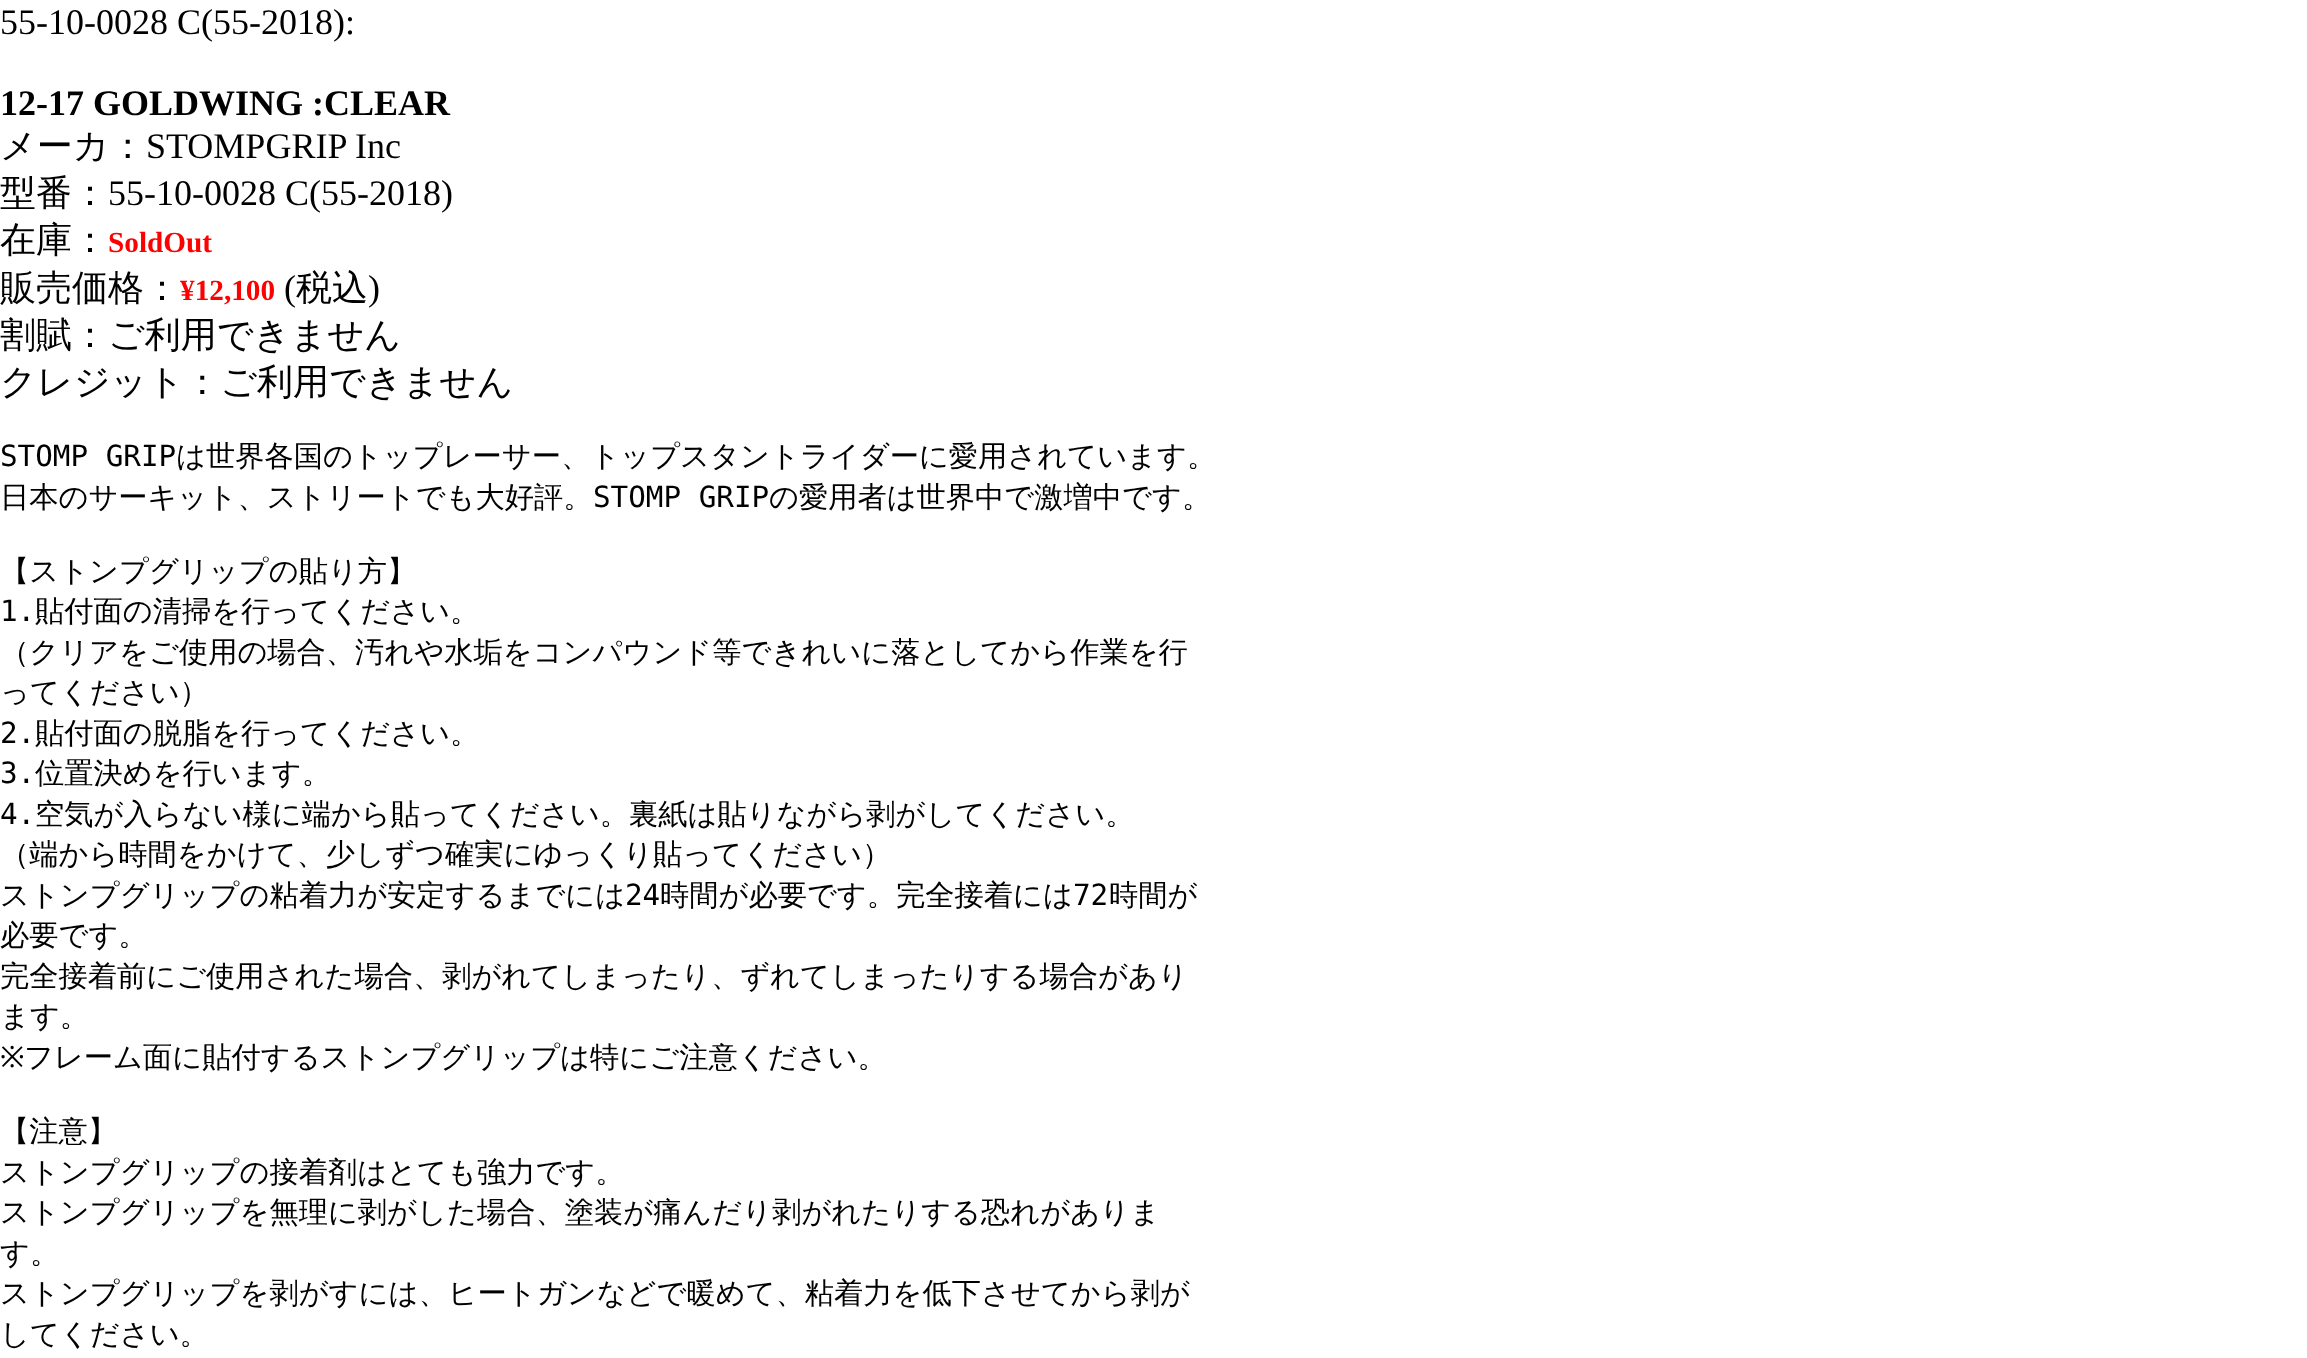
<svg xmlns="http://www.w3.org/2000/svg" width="2307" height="1358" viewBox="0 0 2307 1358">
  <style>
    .t1 { font: 36px Liberation Serif; fill: #000; }
    .t2 { font: bold 36px Liberation Serif; fill: #000; }
    .t3 { font: 500 36px WenQuanYi Zen Hei; fill: #000; }
    .t4 { font: bold 29.25px Liberation Serif; fill: #f00; }
    .t5 { font: 29.25px DejaVu Sans Mono; fill: #000; }
    .t6 { font: 500 29.25px WenQuanYi Zen Hei; fill: #000; }
    .t7 { font: 29.25px Noto Sans; fill: #000; }
  </style>
  <rect width="100%" height="100%" fill="#fff"/>
  <text x="0" y="34" class="t1">55-10-0028 C(55-2018):</text>
  <text x="0" y="115" class="t2">12-17 GOLDWING :CLEAR</text>
  <text x="0" y="158" class="t3">メーカ：</text>
  <text x="146" y="158" class="t1">STOMPGRIP Inc</text>
  <text x="0" y="205" class="t3">型番：</text>
  <text x="108" y="205" class="t1">55-10-0028 C(55-2018)</text>
  <text x="0" y="252" class="t3">在庫：</text>
  <text x="108" y="252" class="t4">SoldOut</text>
  <text x="0" y="300" class="t3">販売価格：</text>
  <text x="180" y="300" class="t4">¥12,100</text>
  <text x="284" y="300" class="t1">(</text>
  <text x="296" y="300" class="t3">税込</text>
  <text x="368" y="300" class="t1">)</text>
  <text x="0" y="347" class="t3">割賦：ご利用できません</text>
  <text x="0" y="394" class="t3">クレジット：ご利用できません</text>
  <text x="0" y="466" class="t5">STOMP GRIP</text>
  <text x="176" y="466" class="t6">は世界各国のトップレーサー、トップスタントライダーに愛用されています。</text>
  <text x="0" y="507" class="t6">日本のサーキット、ストリートでも大好評。</text>
  <text x="593" y="507" class="t5">STOMP GRIP</text>
  <text x="769" y="507" class="t6">の愛用者は世界中で激増中です。</text>
  <text x="0" y="581" class="t6">【ストンプグリップの貼り方】</text>
  <text x="0" y="621" class="t5">1.</text>
  <text x="35" y="621" class="t6">貼付面の清掃を行ってください。</text>
  <text x="0" y="662" class="t6">（クリアをご使用の場合、汚れや水垢をコンパウンド等できれいに落としてから作業を行</text>
  <text x="0" y="702" class="t6">ってください）</text>
  <text x="0" y="743" class="t5">2.</text>
  <text x="35" y="743" class="t6">貼付面の脱脂を行ってください。</text>
  <text x="0" y="783" class="t5">3.</text>
  <text x="35" y="783" class="t6">位置決めを行います。</text>
  <text x="0" y="824" class="t5">4.</text>
  <text x="35" y="824" class="t6">空気が入らない様に端から貼ってください。裏紙は貼りながら剥がしてください。</text>
  <text x="0" y="864" class="t6">（端から時間をかけて、少しずつ確実にゆっくり貼ってください）</text>
  <text x="0" y="905" class="t6">ストンプグリップの粘着力が安定するまでには</text>
  <text x="625" y="905" class="t5">24</text>
  <text x="660" y="905" class="t6">時間が必要です。完全接着には</text>
  <text x="1073" y="905" class="t5">72</text>
  <text x="1109" y="905" class="t6">時間が</text>
  <text x="0" y="945" class="t6">必要です。</text>
  <text x="0" y="986" class="t6">完全接着前にご使用された場合、剥がれてしまったり、ずれてしまったりする場合があり</text>
  <text x="0" y="1026" class="t6">ます。</text>
  <text x="0" y="1067" class="t7">※</text>
  <text x="24" y="1067" class="t6">フレーム面に貼付するストンプグリップは特にご注意ください。</text>
  <text x="0" y="1141" class="t6">【注意】</text>
  <text x="0" y="1182" class="t6">ストンプグリップの接着剤はとても強力です。</text>
  <text x="0" y="1222" class="t6">ストンプグリップを無理に剥がした場合、塗装が痛んだり剥がれたりする恐れがありま</text>
  <text x="0" y="1263" class="t6">す。</text>
  <text x="0" y="1303" class="t6">ストンプグリップを剥がすには、ヒートガンなどで暖めて、粘着力を低下させてから剥が</text>
  <text x="0" y="1344" class="t6">してください。</text>
</svg>
